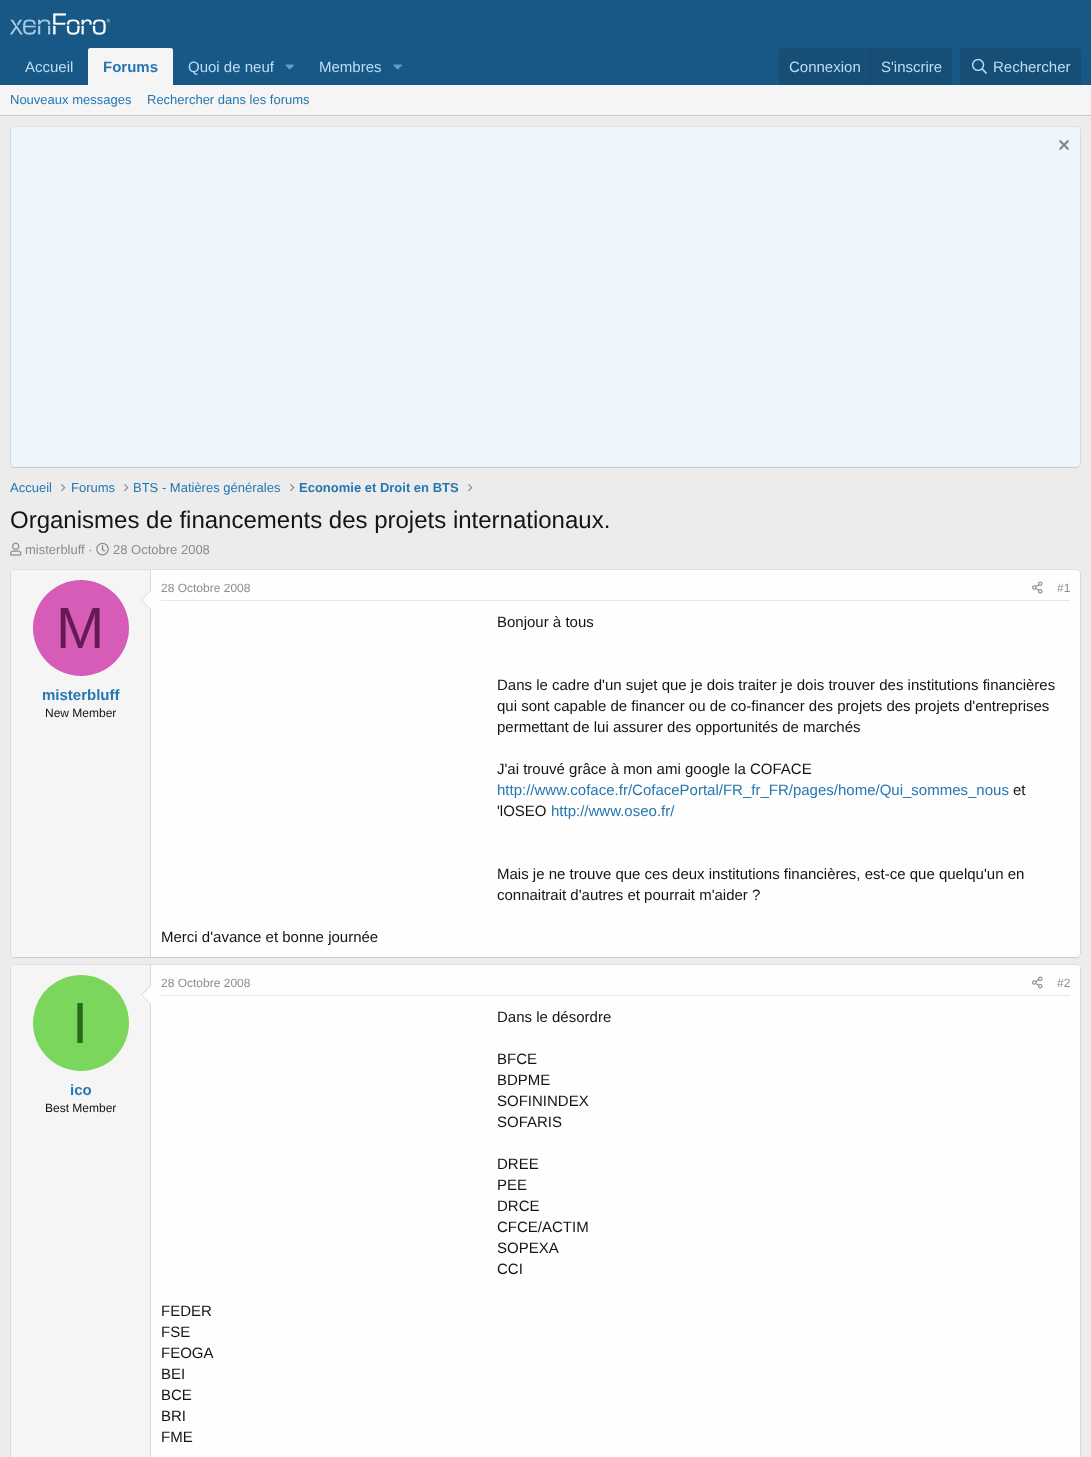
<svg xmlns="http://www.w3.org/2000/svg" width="1091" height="1457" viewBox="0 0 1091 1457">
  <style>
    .t1 { font: 15px Liberation Sans; fill: #bcdef5; }
    .t2 { font: bold 15px Liberation Sans; fill: #2577b1; }
    .t3 { font: 13px Liberation Sans; fill: #2577b1; }
    .t4 { font: bold 13px Liberation Sans; fill: #2577b1; }
    .t5 { font: 24px Liberation Sans; fill: #141414; }
    .t6 { font: 13px Liberation Sans; fill: #8c8c8c; }
    .t7 { font: 58px Liberation Sans; fill: #661a53; }
    .t8 { font: 12px Liberation Sans; fill: #141414; }
    .t9 { font: 12px Liberation Sans; fill: #8c8c8c; }
    .t10 { font: 15px Liberation Sans; fill: #141414; }
    .t11 { font: 15px Liberation Sans; fill: #2577b1; }
    .t12 { font: 58px Liberation Sans; fill: #2d661a; }
  </style>
  <rect width="100%" height="100%" fill="#ececec"/>
  <rect x="0" y="0" width="1091" height="85" fill="#185886"/>
  <image x="10" y="13" width="100" height="22" href="images/1.png"/>
  <text x="25" y="72" class="t1">Accueil</text>
  <path d="M90 48H171C172 48 173 49 173 50V85H88V50C88 49 89 48 90 48Z" fill="#f5f5f5"/>
  <text x="103" y="72" class="t2">Forums</text>
  <text x="188" y="72" class="t1">Quoi de neuf</text>
  <image x="285" y="64" width="9" height="6" href="images/2.png"/>
  <text x="319" y="72" class="t1">Membres</text>
  <image x="393" y="64" width="9" height="6" href="images/2.png"/>
  <path d="M783 48H948C950 48 952 50 952 52V85H779V52C779 50 781 48 783 48Z" fill="#174e75"/>
  <text x="789" y="72" class="t1">Connexion</text>
  <rect x="870" y="48" width="1" height="37" fill="#174566"/>
  <text x="881" y="72" class="t1">S'inscrire</text>
  <path d="M964 48H1077C1079 48 1081 50 1081 52V85H960V52C960 50 962 48 964 48Z" fill="#174e75"/>
  <image x="972" y="58" width="15" height="16" href="images/3.png"/>
  <text x="993" y="72" class="t1">Rechercher</text>
  <rect x="0" y="85" width="1091" height="30" fill="#f5f5f5"/>
  <rect x="0" y="115" width="1091" height="1" fill="#cbcbcb"/>
  <text x="10" y="104" class="t3">Nouveaux messages</text>
  <text x="147" y="104" class="t3">Rechercher dans les forums</text>
  <rect x="10" y="126" width="1071" height="342" rx="4" fill="#edf6fd"/>
  <path d="M11.5 127.5L14 126.5H1077L1079.5 127.5" fill="none" stroke="#dfdfdf"/>
  <path d="M1079.5 127.5L1080.5 130V464L1079.5 466.5" fill="none" stroke="#d8d8d8"/>
  <path d="M1079.5 466.5L1077 467.5H14L11.5 466.5" fill="none" stroke="#cbcbcb"/>
  <path d="M11.5 466.5L10.5 464V130L11.5 127.5" fill="none" stroke="#d8d8d8"/>
  <image x="1059" y="140" width="10" height="10" href="images/4.png"/>
  <text x="10" y="492" class="t3">Accueil</text>
  <image x="61" y="484" width="5" height="8" href="images/5.png"/>
  <text x="71" y="492" class="t3">Forums</text>
  <image x="124" y="484" width="5" height="8" href="images/5.png"/>
  <text x="133" y="492" class="t3">BTS - Matières générales</text>
  <image x="290" y="484" width="5" height="8" href="images/5.png"/>
  <text x="299" y="492" class="t4">Economie et Droit en BTS</text>
  <image x="468" y="484" width="5" height="8" href="images/5.png"/>
  <text x="10" y="528" class="t5">Organismes de financements des projets internationaux.</text>
  <image x="10" y="542" width="12" height="14" href="images/6.png"/>
  <text x="25" y="554" class="t6">misterbluff ·</text>
  <image x="96" y="542" width="13" height="14" href="images/7.png"/>
  <text x="113" y="554" class="t6">28 Octobre 2008</text>
  <rect x="10" y="569" width="1071" height="389" rx="4" fill="#fefefe"/>
  <path d="M11.5 570.5L14 569.5H1077L1079.5 570.5" fill="none" stroke="#dfdfdf"/>
  <path d="M1079.5 570.5L1080.5 573V954L1079.5 956.5" fill="none" stroke="#d8d8d8"/>
  <path d="M1079.5 956.5L1077 957.5H14L11.5 956.5" fill="none" stroke="#cbcbcb"/>
  <path d="M11.5 956.5L10.5 954V573L11.5 570.5" fill="none" stroke="#d8d8d8"/>
  <path d="M14 570H151V957H14C12.5 957 11 955.5 11 954V573C11 571.5 12.5 570 14 570Z" fill="#f5f5f5"/>
  <rect x="150" y="570" width="1" height="387" fill="#d8d8d8"/>
  <path d="M151 590V610L141 600Z" fill="#d8d8d8"/>
  <path d="M151 591V609L142 600Z" fill="#fefefe"/>
  <circle cx="81" cy="628" r="48" fill="#d65cb8"/>
  <text x="56" y="648" class="t7">M</text>
  <text x="42" y="700" class="t2">misterbluff</text>
  <text x="45" y="717" class="t8">New Member</text>
  <rect x="161" y="600" width="909" height="1" fill="#e7e7e7"/>
  <text x="161" y="592" class="t9">28 Octobre 2008</text>
  <image x="1032" y="581" width="11" height="13" href="images/8.png"/>
  <text x="1057" y="592" class="t9">#1</text>
  <text x="497" y="627" class="t10">Bonjour à tous</text>
  <text x="497" y="690" class="t10">Dans le cadre d'un sujet que je dois traiter je dois trouver des institutions financières</text>
  <text x="497" y="711" class="t10">qui sont capable de financer ou de co-financer des projets des projets d'entreprises</text>
  <text x="497" y="732" class="t10">permettant de lui assurer des opportunités de marchés</text>
  <text x="497" y="774" class="t10">J'ai trouvé grâce à mon ami google la COFACE</text>
  <text x="497" y="795" class="t11">http://www.coface.fr/CofacePortal/FR_fr_FR/pages/home/Qui_sommes_nous</text>
  <text x="1013" y="795" class="t10">et</text>
  <text x="497" y="816" class="t10">'lOSEO</text>
  <text x="551" y="816" class="t11">http://www.oseo.fr/</text>
  <text x="497" y="879" class="t10">Mais je ne trouve que ces deux institutions financières, est-ce que quelqu'un en</text>
  <text x="497" y="900" class="t10">connaitrait d'autres et pourrait m'aider ?</text>
  <text x="161" y="942" class="t10">Merci d'avance et bonne journée</text>
  <rect x="10" y="964" width="1071" height="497" rx="4" fill="#fefefe"/>
  <path d="M11.5 965.5L14 964.5H1077L1079.5 965.5" fill="none" stroke="#dfdfdf"/>
  <path d="M1079.5 965.5C1080 966 1080.5 967 1080.5 968V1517C1080.5 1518 1080 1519 1079.5 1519.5" fill="none" stroke="#d8d8d8"/>
  <path d="M11.5 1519.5C11 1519 10.5 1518 10.5 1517V968C10.5 967 11 966 11.5 965.5" fill="none" stroke="#d8d8d8"/>
  <path d="M14 965H151V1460H14C12.5 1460 11 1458.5 11 1457V968C11 966.5 12.5 965 14 965Z" fill="#f5f5f5"/>
  <rect x="150" y="965" width="1" height="492" fill="#d8d8d8"/>
  <path d="M151 985V1005L141 995Z" fill="#d8d8d8"/>
  <path d="M151 986V1004L142 995Z" fill="#fefefe"/>
  <circle cx="81" cy="1023" r="48" fill="#7ad65c"/>
  <text x="72" y="1043" class="t12">I</text>
  <text x="70" y="1095" class="t2">ico</text>
  <text x="45" y="1112" class="t8">Best Member</text>
  <rect x="161" y="995" width="909" height="1" fill="#e7e7e7"/>
  <text x="161" y="987" class="t9">28 Octobre 2008</text>
  <image x="1032" y="976" width="11" height="13" href="images/8.png"/>
  <text x="1057" y="987" class="t9">#2</text>
  <text x="497" y="1022" class="t10">Dans le désordre</text>
  <text x="497" y="1064" class="t10">BFCE</text>
  <text x="497" y="1085" class="t10">BDPME</text>
  <text x="497" y="1106" class="t10">SOFININDEX</text>
  <text x="497" y="1127" class="t10">SOFARIS</text>
  <text x="497" y="1169" class="t10">DREE</text>
  <text x="497" y="1190" class="t10">PEE</text>
  <text x="497" y="1211" class="t10">DRCE</text>
  <text x="497" y="1232" class="t10">CFCE/ACTIM</text>
  <text x="497" y="1253" class="t10">SOPEXA</text>
  <text x="497" y="1274" class="t10">CCI</text>
  <text x="161" y="1316" class="t10">FEDER</text>
  <text x="161" y="1337" class="t10">FSE</text>
  <text x="161" y="1358" class="t10">FEOGA</text>
  <text x="161" y="1379" class="t10">BEI</text>
  <text x="161" y="1400" class="t10">BCE</text>
  <text x="161" y="1421" class="t10">BRI</text>
  <text x="161" y="1442" class="t10">FME</text>
</svg>
